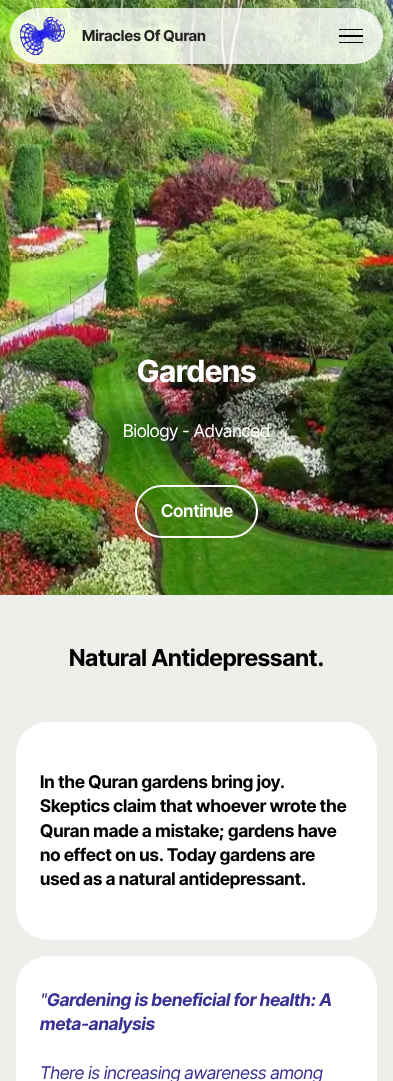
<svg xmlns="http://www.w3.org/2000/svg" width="393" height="1081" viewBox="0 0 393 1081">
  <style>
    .t1 { font: bold 15px Inter Tight; fill: #232323; }
    .t2 { font: bold 30.5px Inter Tight; fill: #fff; }
    .t3 { font: 17.5px Inter Tight; fill: #fff; }
    .t4 { font: 600 17.5px Inter Tight; fill: #fff; }
    .t5 { font: bold 23.25px Inter Tight; fill: #000; }
    .t6 { font: bold 17.5px Inter Tight; fill: #000; }
    .t7 { font: italic 17.5px Inter Tight; fill: #393193; }
    .t8 { font: italic bold 17.5px Inter Tight; fill: #393193; }
  </style>
  <defs>
    <clipPath id="clip1"><path d="M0 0H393V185H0ZM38 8H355C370.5 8 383 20.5 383 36C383 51.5 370.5 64 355 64H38C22.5 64 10 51.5 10 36C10 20.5 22.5 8 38 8Z" clip-rule="evenodd"/></clipPath>
  </defs>
  <rect width="100%" height="100%" fill="#fff"/>
  <image x="0" y="0" width="393" height="595" href="images/2.png"/>
  <g clip-path="url(#clip1)">
    <rect x="10" y="38" width="373" height="56" rx="28" fill="#1b1f0a14" filter="blur(30px)"/>
  </g>
  <rect x="10" y="8" width="373" height="56" rx="28" fill="#ffffffcc"/>
  <image x="20" y="16" width="45" height="39" href="images/1.png"/>
  <text x="82" y="41" class="t1">Miracles Of Quran</text>
  <rect x="339" y="29" width="24" height="1" fill="#000"/>
  <rect x="339" y="35" width="24" height="2" fill="#000"/>
  <rect x="339" y="42" width="24" height="1" fill="#000"/>
  <text x="137" y="382" class="t2">Gardens</text>
  <text x="123" y="437" class="t3">Biology - Advanced</text>
  <rect x="136" y="486" width="121" height="51" rx="25.5" fill="none" stroke="#fafafa" stroke-width="2"/>
  <text x="161" y="517" class="t4">Continue</text>
  <rect x="0" y="595" width="393" height="486" fill="#edefeb"/>
  <text x="69" y="666" class="t5">Natural Antidepressant.</text>
  <rect x="16" y="722" width="361" height="218" rx="32" fill="#fff"/>
  <text x="40" y="788" class="t6">In the Quran gardens bring joy.</text>
  <text x="40" y="812" class="t6">Skeptics claim that whoever wrote the</text>
  <text x="40" y="837" class="t6">Quran made a mistake; gardens have</text>
  <text x="40" y="861" class="t6">no effect on us. Today gardens are</text>
  <text x="40" y="885" class="t6">used as a natural antidepressant.</text>
  <rect x="16" y="956" width="361" height="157" rx="32" fill="#fff"/>
  <text x="40" y="1006" class="t7">"</text>
  <text x="47" y="1006" class="t8">Gardening is beneficial for health: A</text>
  <text x="40" y="1030" class="t8">meta-analysis</text>
  <text x="40" y="1079" class="t7">There is increasing awareness among</text>
</svg>
